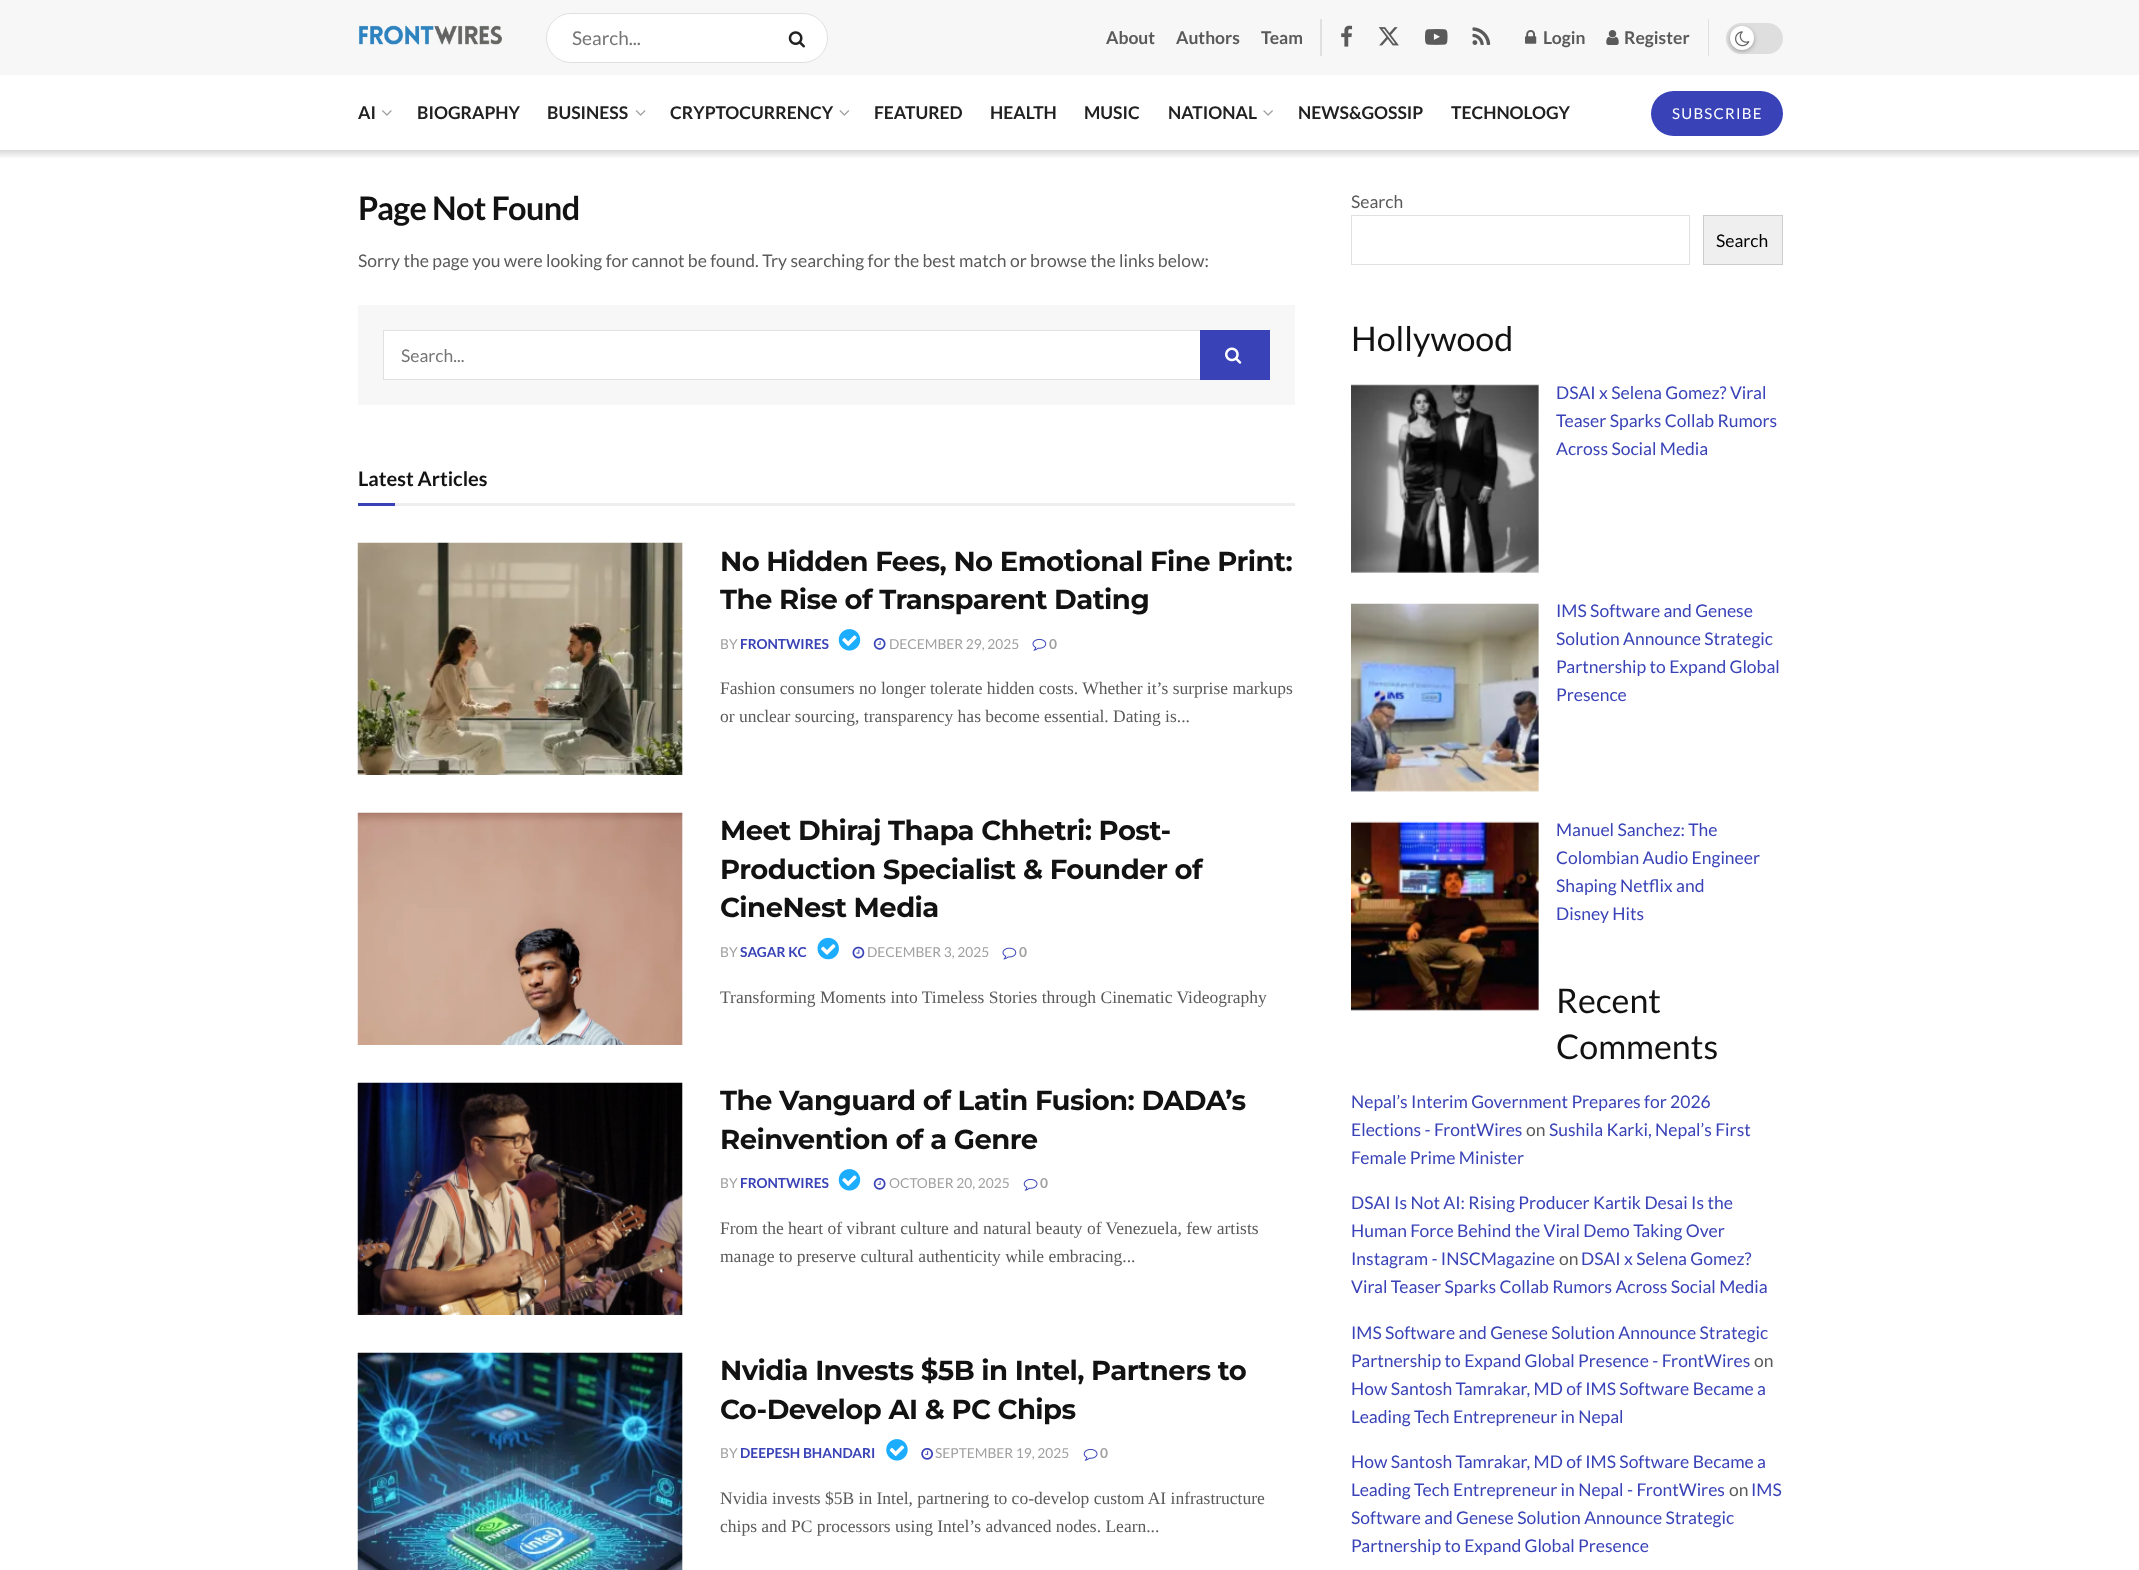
<svg xmlns="http://www.w3.org/2000/svg" width="2139" height="1570" viewBox="0 0 2139 1570">
  <style>
    .t1 { font: 19px Lato; fill: #757575; }
    .t2 { font: bold 17.5px Lato; fill: #5a5a5a; }
    .t3 { font: bold 17.5px Lato; fill: #212121; }
    .t4 { font: 15px Lato; letter-spacing: 1.25px; fill: #fff; }
    .t5 { font: bold 32.5px Lato; letter-spacing: -0.6px; fill: #121212; }
    .t6 { font: 17.5px Lato; fill: #5a5a5a; }
    .t7 { font: 17.5px Lato; fill: #757575; }
    .t8 { font: bold 20px Lato; fill: #121212; }
    .t9 { font: bold 27.5px Montserrat; letter-spacing: -0.55px; fill: #121212; }
    .t10 { font: 13.75px Lato; fill: #a0a0a0; }
    .t11 { font: bold 13.75px Lato; fill: #3943b7; }
    .t12 { font: bold 13.75px Lato; fill: #a0a0a0; }
    .t13 { font: 17.5px Liberation Serif; fill: #5a5a5a; }
    .t14 { font: 17.5px Lato; fill: #000; }
    .t15 { font: 34px Lato; fill: #121212; }
    .t16 { font: 17.5px Lato; fill: #3943b7; }
  </style>
  <defs>
    <linearGradient id="g1" gradientUnits="userSpaceOnUse" x1="1070" y1="150" x2="1070" y2="159"><stop offset="0" stop-color="#d9d9d9"/><stop offset="1" stop-color="#fff"/></linearGradient>
  </defs>
  <rect width="100%" height="100%" fill="#fff"/>
  <rect x="0" y="0" width="2139" height="75" fill="#f7f7f7"/>
  <image x="358" y="25" width="144" height="20" href="images/1.png"/>
  <rect x="546.5" y="13.5" width="281" height="49" rx="24.5" fill="#fff" stroke="#e0e0e0"/>
  <text x="572" y="45" class="t1">Search...</text>
  <image x="788" y="31" width="17" height="17" href="images/2.png"/>
  <text x="1106" y="44" class="t2">About</text>
  <text x="1176" y="44" class="t2">Authors</text>
  <text x="1261" y="44" class="t2">Team</text>
  <rect x="1320" y="19" width="2" height="37" fill="#e0e0e0"/>
  <image x="1341" y="25" width="12" height="22" href="images/3.png"/>
  <image x="1378" y="27" width="21" height="19" href="images/4.png"/>
  <image x="1425" y="29" width="23" height="16" href="images/5.png"/>
  <image x="1472" y="27" width="19" height="18" href="images/6.png"/>
  <image x="1525" y="30" width="12" height="14" href="images/7.png"/>
  <text x="1543" y="44" class="t2">Login</text>
  <image x="1606" y="30" width="13" height="15" href="images/8.png"/>
  <text x="1624" y="44" class="t2">Register</text>
  <rect x="1708" y="19" width="1" height="37" fill="#e0e0e0"/>
  <rect x="1726" y="23" width="57" height="31" rx="15.5" fill="#dedede"/>
  <rect x="1730" y="28" width="24" height="23" rx="11.5" fill="#0000004d" filter="blur(2px)"/>
  <circle cx="1742" cy="38" r="12" fill="#fff"/>
  <image x="1735" y="31" width="15" height="16" href="images/9.png"/>
  <text x="358" y="119" class="t3">AI</text>
  <image x="382" y="110" width="10" height="6" href="images/10.png"/>
  <text x="417" y="119" class="t3">BIOGRAPHY</text>
  <text x="547" y="119" class="t3">BUSINESS</text>
  <image x="635" y="110" width="11" height="6" href="images/11.png"/>
  <text x="670" y="119" class="t3">CRYPTOCURRENCY</text>
  <image x="839" y="110" width="11" height="6" href="images/12.png"/>
  <text x="874" y="119" class="t3">FEATURED</text>
  <text x="990" y="119" class="t3">HEALTH</text>
  <text x="1084" y="119" class="t3">MUSIC</text>
  <text x="1168" y="119" class="t3">NATIONAL</text>
  <image x="1263" y="110" width="10" height="6" href="images/13.png"/>
  <text x="1298" y="119" class="t3">NEWS&amp;GOSSIP</text>
  <text x="1451" y="119" class="t3">TECHNOLOGY</text>
  <rect x="1651" y="91" width="132" height="45" rx="22.5" fill="#3943b7"/>
  <text x="1672" y="119" class="t4">SUBSCRIBE</text>
  <rect x="0" y="150" width="2139" height="8" fill="url(#g1)"/>
  <text x="358" y="220" class="t5">Page Not Found</text>
  <text x="358" y="267" class="t6">Sorry the page you were looking for cannot be found. Try searching for the best match or browse the links below:</text>
  <rect x="358" y="305" width="937" height="100" fill="#f7f7f7"/>
  <rect x="384" y="331" width="816" height="48" fill="#fff"/>
  <rect x="383.5" y="330.5" width="886" height="49" fill="none" stroke="#e0e0e0"/>
  <text x="401" y="362" class="t7">Search...</text>
  <rect x="1200" y="330" width="70" height="50" fill="#3943b7"/>
  <image x="1225" y="347" width="17" height="17" href="images/14.png"/>
  <rect x="395" y="503" width="900" height="3" fill="#eee"/>
  <text x="358" y="486" class="t8">Latest Articles</text>
  <rect x="358" y="503" width="37" height="3" fill="#3943b7"/>
  <rect x="682" y="543" width="1" height="232" fill="#f7f7f7"/>
  <image x="357" y="542" width="326" height="233" href="images/15.png"/>
  <text x="720" y="571" class="t9">No Hidden Fees, No Emotional Fine Print:</text>
  <text x="720" y="609" class="t9">The Rise of Transparent Dating</text>
  <text x="720" y="649" class="t10">BY</text>
  <text x="740" y="649" class="t11">FRONTWIRES</text>
  <image x="838" y="629" width="23" height="22" href="images/16.png"/>
  <image x="873" y="637" width="13" height="13" href="images/17.png"/>
  <text x="889" y="649" class="t10">DECEMBER 29, 2025</text>
  <image x="1032" y="638" width="15" height="13" href="images/18.png"/>
  <text x="1049" y="649" class="t12">0</text>
  <text x="720" y="694" class="t13">Fashion consumers no longer tolerate hidden costs. Whether it’s surprise markups</text>
  <text x="720" y="722" class="t13">or unclear sourcing, transparency has become essential. Dating is...</text>
  <rect x="682" y="813" width="1" height="232" fill="#f7f7f7"/>
  <image x="357" y="812" width="326" height="233" href="images/19.png"/>
  <text x="720" y="840" class="t9">Meet Dhiraj Thapa Chhetri: Post-</text>
  <text x="720" y="879" class="t9">Production Specialist &amp; Founder of</text>
  <text x="720" y="917" class="t9">CineNest Media</text>
  <text x="720" y="957" class="t10">BY</text>
  <text x="740" y="957" class="t11">SAGAR KC</text>
  <image x="817" y="937" width="22" height="23" href="images/20.png"/>
  <image x="852" y="946" width="13" height="13" href="images/21.png"/>
  <text x="867" y="957" class="t10">DECEMBER 3, 2025</text>
  <image x="1002" y="947" width="15" height="13" href="images/22.png"/>
  <text x="1019" y="957" class="t12">0</text>
  <text x="720" y="1003" class="t13">Transforming Moments into Timeless Stories through Cinematic Videography</text>
  <rect x="682" y="1083" width="1" height="232" fill="#f7f7f7"/>
  <image x="357" y="1082" width="326" height="233" href="images/23.png"/>
  <text x="720" y="1110" class="t9">The Vanguard of Latin Fusion: DADA’s</text>
  <text x="720" y="1149" class="t9">Reinvention of a Genre</text>
  <text x="720" y="1188" class="t10">BY</text>
  <text x="740" y="1188" class="t11">FRONTWIRES</text>
  <image x="838" y="1169" width="23" height="22" href="images/16.png"/>
  <image x="873" y="1177" width="13" height="13" href="images/17.png"/>
  <text x="889" y="1188" class="t10">OCTOBER 20, 2025</text>
  <image x="1023" y="1178" width="15" height="13" href="images/24.png"/>
  <text x="1040" y="1188" class="t12">0</text>
  <text x="720" y="1234" class="t13">From the heart of vibrant culture and natural beauty of Venezuela, few artists</text>
  <text x="720" y="1262" class="t13">manage to preserve cultural authenticity while embracing...</text>
  <rect x="682" y="1353" width="1" height="217" fill="#f7f7f7"/>
  <image x="357" y="1352" width="326" height="218" href="images/25.png"/>
  <text x="720" y="1380" class="t9">Nvidia Invests $5B in Intel, Partners to</text>
  <text x="720" y="1419" class="t9">Co-Develop AI &amp; PC Chips</text>
  <text x="720" y="1458" class="t10">BY</text>
  <text x="740" y="1458" class="t11">DEEPESH BHANDARI</text>
  <image x="886" y="1439" width="22" height="22" href="images/26.png"/>
  <image x="921" y="1448" width="12" height="12" href="images/27.png"/>
  <text x="935" y="1458" class="t10">SEPTEMBER 19, 2025</text>
  <image x="1083" y="1448" width="15" height="13" href="images/24.png"/>
  <text x="1100" y="1458" class="t12">0</text>
  <text x="720" y="1504" class="t13">Nvidia invests $5B in Intel, partnering to co-develop custom AI infrastructure</text>
  <text x="720" y="1532" class="t13">chips and PC processors using Intel’s advanced nodes. Learn...</text>
  <text x="1351" y="208" class="t6">Search</text>
  <rect x="1351.5" y="215.5" width="338" height="49" fill="none" stroke="#e0e0e0"/>
  <rect x="1703.5" y="215.5" width="79" height="49" fill="#efefef" stroke="#ccc"/>
  <text x="1716" y="247" class="t14">Search</text>
  <text x="1351" y="351" class="t15">Hollywood</text>
  <image x="1351" y="384" width="188" height="189" href="images/28.png"/>
  <text x="1556" y="399" class="t16">DSAI x Selena Gomez? Viral</text>
  <text x="1556" y="427" class="t16">Teaser Sparks Collab Rumors</text>
  <text x="1556" y="455" class="t16">Across Social Media</text>
  <image x="1351" y="603" width="188" height="189" href="images/29.png"/>
  <text x="1556" y="617" class="t16">IMS Software and Genese</text>
  <text x="1556" y="645" class="t16">Solution Announce Strategic</text>
  <text x="1556" y="673" class="t16">Partnership to Expand Global</text>
  <text x="1556" y="701" class="t16">Presence</text>
  <image x="1351" y="821" width="188" height="190" href="images/30.png"/>
  <text x="1556" y="836" class="t16">Manuel Sanchez: The</text>
  <text x="1556" y="864" class="t16">Colombian Audio Engineer</text>
  <text x="1556" y="892" class="t16">Shaping Netflix and</text>
  <text x="1556" y="920" class="t16">Disney Hits</text>
  <text x="1556" y="1013" class="t15">Recent</text>
  <text x="1556" y="1059" class="t15">Comments</text>
  <text x="1351" y="1108" class="t16">Nepal’s Interim Government Prepares for 2026</text>
  <text x="1351" y="1136" class="t16">Elections - FrontWires</text>
  <text x="1526" y="1136" class="t6">on</text>
  <text x="1549" y="1136" class="t16">Sushila Karki, Nepal’s First</text>
  <text x="1351" y="1164" class="t16">Female Prime Minister</text>
  <text x="1351" y="1209" class="t16">DSAI Is Not AI: Rising Producer Kartik Desai Is the</text>
  <text x="1351" y="1237" class="t16">Human Force Behind the Viral Demo Taking Over</text>
  <text x="1351" y="1265" class="t16">Instagram - INSCMagazine</text>
  <text x="1559" y="1265" class="t6">on</text>
  <text x="1581" y="1265" class="t16">DSAI x Selena Gomez?</text>
  <text x="1351" y="1293" class="t16">Viral Teaser Sparks Collab Rumors Across Social Media</text>
  <text x="1351" y="1339" class="t16">IMS Software and Genese Solution Announce Strategic</text>
  <text x="1351" y="1367" class="t16">Partnership to Expand Global Presence - FrontWires</text>
  <text x="1754" y="1367" class="t6">on</text>
  <text x="1351" y="1395" class="t16">How Santosh Tamrakar, MD of IMS Software Became a</text>
  <text x="1351" y="1423" class="t16">Leading Tech Entrepreneur in Nepal</text>
  <text x="1351" y="1468" class="t16">How Santosh Tamrakar, MD of IMS Software Became a</text>
  <text x="1351" y="1496" class="t16">Leading Tech Entrepreneur in Nepal - FrontWires</text>
  <text x="1729" y="1496" class="t6">on</text>
  <text x="1751" y="1496" class="t16">IMS</text>
  <text x="1351" y="1524" class="t16">Software and Genese Solution Announce Strategic</text>
  <text x="1351" y="1552" class="t16">Partnership to Expand Global Presence</text>
</svg>
